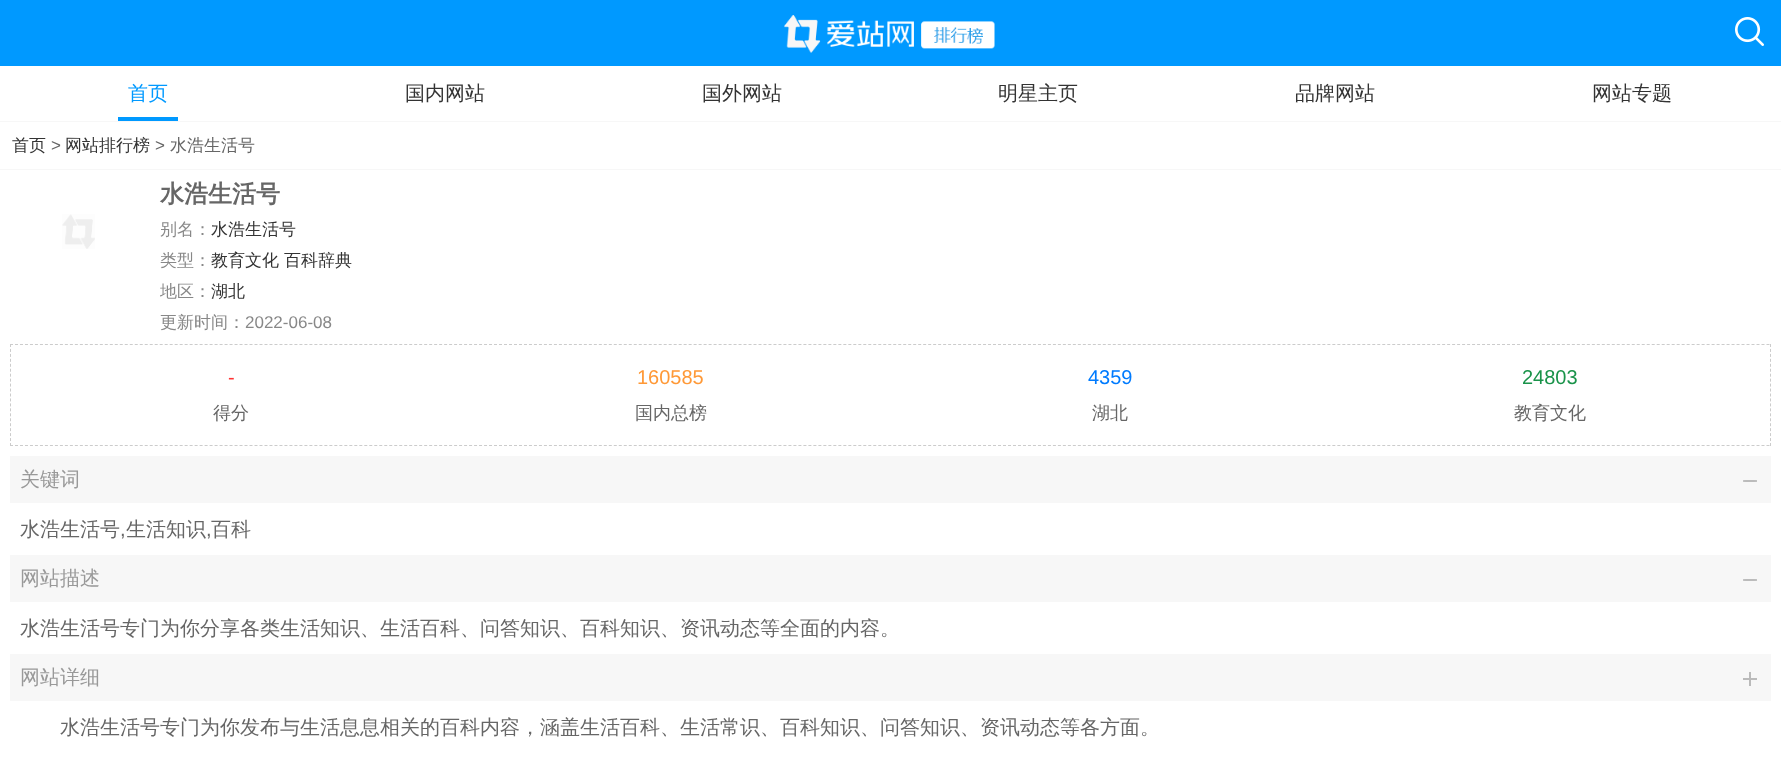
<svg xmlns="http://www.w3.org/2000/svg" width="1781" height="760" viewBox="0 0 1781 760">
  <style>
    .t1 { font: 500 20px WenQuanYi Zen Hei; fill: #09f; }
    .t2 { font: 500 20px WenQuanYi Zen Hei; fill: #333; }
    .t3 { font: 500 17px WenQuanYi Zen Hei; fill: #333; }
    .t4 { font: 17px Liberation Sans; fill: #666; }
    .t5 { font: 500 17px WenQuanYi Zen Hei; fill: #666; }
    .t6 { font: bold 24px WenQuanYi Zen Hei; fill: #666; }
    .t7 { font: 500 17px WenQuanYi Zen Hei; fill: #888; }
    .t8 { font: 17px Liberation Sans; fill: #888; }
    .t9 { font: 20px Liberation Sans; fill: #f33; }
    .t10 { font: 500 18px WenQuanYi Zen Hei; fill: #666; }
    .t11 { font: 20px Liberation Sans; fill: #ff9937; }
    .t12 { font: 20px Liberation Sans; fill: #007bfe; }
    .t13 { font: 20px Liberation Sans; fill: #1a934a; }
    .t14 { font: 500 20px WenQuanYi Zen Hei; fill: #999; }
    .t15 { font: 500 20px WenQuanYi Zen Hei; fill: #666; }
    .t16 { font: 20px Liberation Sans; fill: #666; }
  </style>
  <rect width="100%" height="100%" fill="#fff"/>
  <rect x="0" y="0" width="1781" height="66" fill="#09f"/>
  <image x="784" y="15" width="211" height="38" href="images/1.png"/>
  <image x="1735" y="17" width="29" height="29" href="images/2.png"/>
  <text x="128" y="100" class="t1">首页</text>
  <rect x="118" y="117" width="60" height="4" fill="#09f"/>
  <text x="405" y="100" class="t2">国内网站</text>
  <text x="702" y="100" class="t2">国外网站</text>
  <text x="998" y="100" class="t2">明星主页</text>
  <text x="1295" y="100" class="t2">品牌网站</text>
  <text x="1592" y="100" class="t2">网站专题</text>
  <rect x="0" y="121" width="1781" height="1" fill="#f7f7f7"/>
  <rect x="0" y="169" width="1781" height="1" fill="#f7f7f7"/>
  <text x="12" y="151" class="t3">首页</text>
  <text x="51" y="151" class="t4">&gt;</text>
  <text x="65" y="151" class="t3">网站排行榜</text>
  <text x="155" y="151" class="t4">&gt;</text>
  <text x="170" y="151" class="t5">水浩生活号</text>
  <image x="62" y="214" width="33" height="35" href="images/3.png"/>
  <text x="160" y="202" class="t6">水浩生活号</text>
  <text x="160" y="235" class="t7">别名：</text>
  <text x="211" y="235" class="t3">水浩生活号</text>
  <text x="160" y="266" class="t7">类型：</text>
  <text x="211" y="266" class="t3">教育文化</text>
  <text x="284" y="266" class="t3">百科辞典</text>
  <text x="160" y="297" class="t7">地区：</text>
  <text x="211" y="297" class="t3">湖北</text>
  <text x="160" y="328" class="t7">更新时间：</text>
  <text x="245" y="328" class="t8">2022-06-08</text>
  <path d="M10 344.5H1771" fill="none" stroke="#ccc" stroke-dasharray="3 1.99"/>
  <path d="M1770.5 344V446" fill="none" stroke="#ccc" stroke-dasharray="3 1.95"/>
  <path d="M10 445.5H1771" fill="none" stroke="#ccc" stroke-dasharray="3 1.99"/>
  <path d="M10.5 344V446" fill="none" stroke="#ccc" stroke-dasharray="3 1.95"/>
  <text x="228" y="384" class="t9">-</text>
  <text x="213" y="419" class="t10">得分</text>
  <text x="637" y="384" class="t11">160585</text>
  <text x="635" y="419" class="t10">国内总榜</text>
  <text x="1088" y="384" class="t12">4359</text>
  <text x="1092" y="419" class="t10">湖北</text>
  <text x="1522" y="384" class="t13">24803</text>
  <text x="1514" y="419" class="t10">教育文化</text>
  <rect x="10" y="456" width="1761" height="47" fill="#f7f7f7"/>
  <text x="20" y="486" class="t14">关键词</text>
  <image x="1743" y="480" width="14" height="2" href="images/4.png"/>
  <text x="20" y="536" class="t15">水浩生活号</text>
  <text x="120" y="536" class="t16">,</text>
  <text x="126" y="536" class="t15">生活知识</text>
  <text x="206" y="536" class="t16">,</text>
  <text x="211" y="536" class="t15">百科</text>
  <rect x="10" y="555" width="1761" height="47" fill="#f7f7f7"/>
  <text x="20" y="585" class="t14">网站描述</text>
  <image x="1743" y="579" width="14" height="2" href="images/4.png"/>
  <text x="20" y="635" class="t15">水浩生活号专门为你分享各类生活知识、生活百科、问答知识、百科知识、资讯动态等全面的内容。</text>
  <rect x="10" y="654" width="1761" height="47" fill="#f7f7f7"/>
  <text x="20" y="684" class="t14">网站详细</text>
  <image x="1743" y="672" width="14" height="14" href="images/5.png"/>
  <text x="60" y="734" class="t15">水浩生活号专门为你发布与生活息息相关的百科内容，涵盖生活百科、生活常识、百科知识、问答知识、资讯动态等各方面。</text>
</svg>
